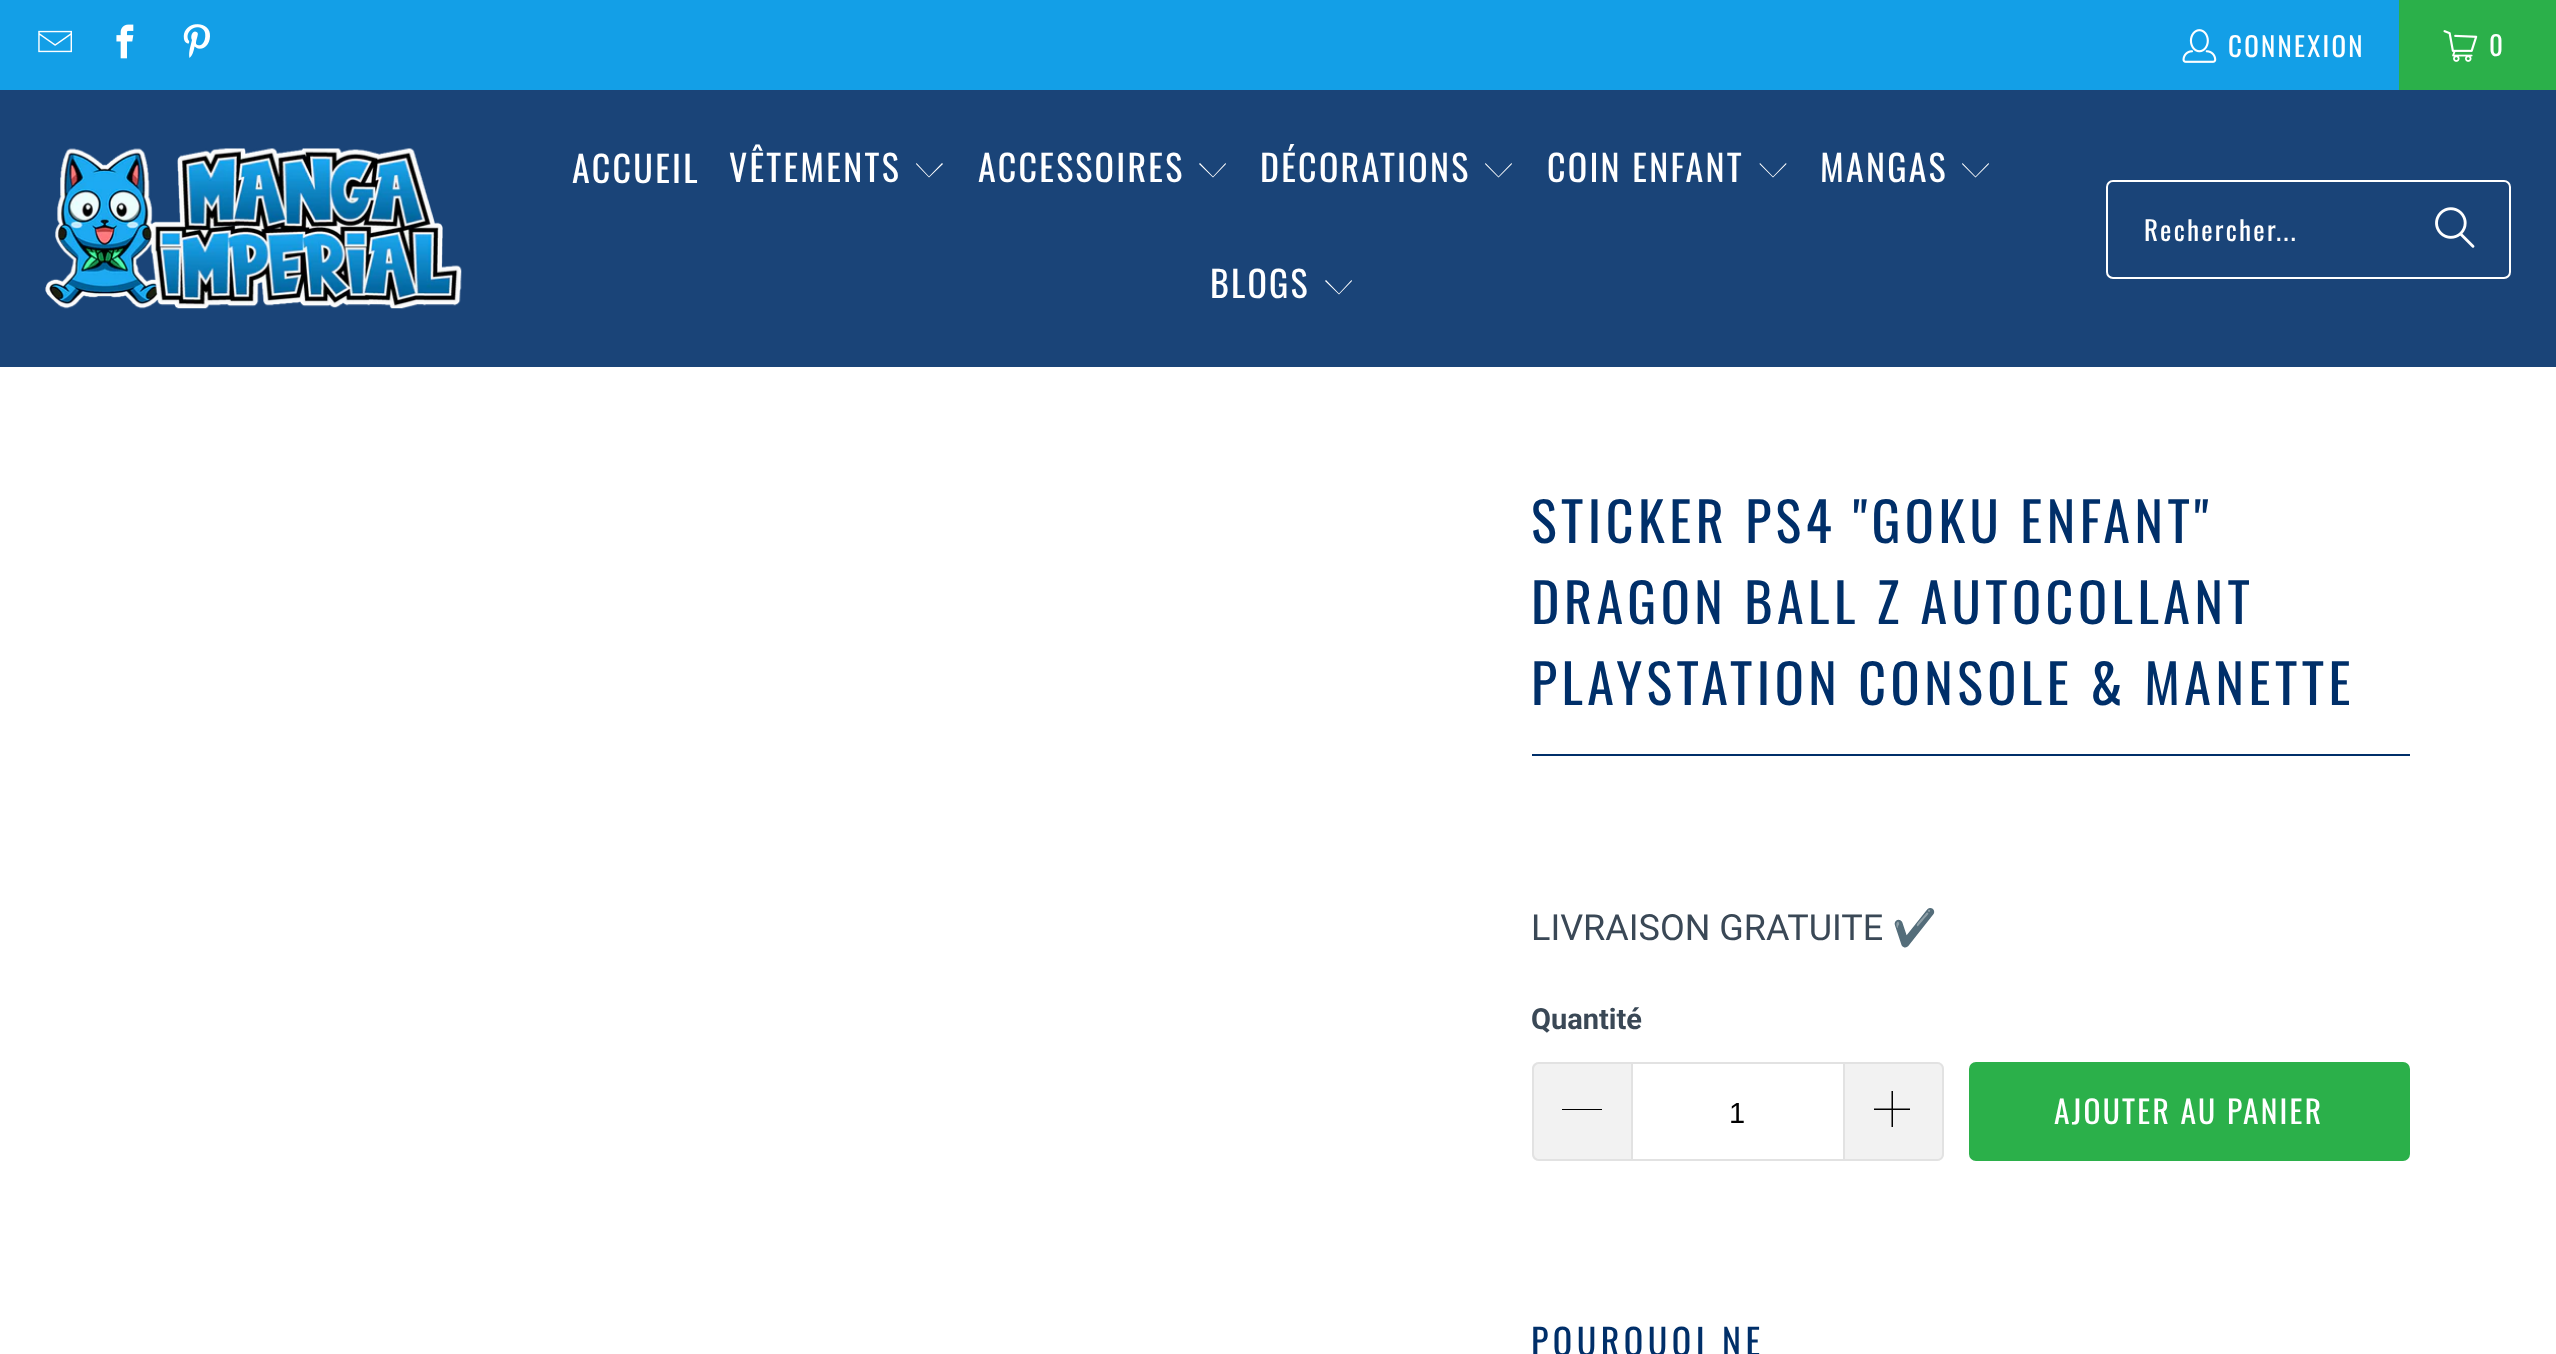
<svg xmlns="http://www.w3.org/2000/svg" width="2556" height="1354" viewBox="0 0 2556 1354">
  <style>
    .t1 { font: 27px Oswald; letter-spacing: 2.25px; fill: #fff; }
    .t2 { font: 36px Oswald; letter-spacing: 2.25px; fill: #fff; }
    .t3 { font: 54px Oswald; letter-spacing: 4.5px; fill: #002f69; }
    .t4 { font: 36px Roboto; fill: #3a4856; }
    .t5 { font: 36px Noto Color Emoji; fill: #3a4856; }
    .t6 { font: bold 29px Roboto; fill: #3a4856; }
    .t7 { font: 29px Liberation Sans; fill: #000; }
    .t8 { font: 31.5px Oswald; letter-spacing: 2.25px; fill: #fff; }
    .t9 { font: 36px Oswald; letter-spacing: 4.5px; fill: #002f69; }
  </style>
  <rect width="100%" height="100%" fill="#fff"/>
  <rect x="0" y="0" width="2399" height="90" fill="#139fe7"/>
  <image x="38" y="30" width="34" height="23" href="images/1.png"/>
  <image x="116" y="24" width="18" height="35" href="images/2.png"/>
  <image x="183" y="24" width="27" height="34" href="images/3.png"/>
  <image x="2182" y="29" width="35" height="34" href="images/4.png"/>
  <text x="2228" y="57" class="t1">CONNEXION</text>
  <rect x="2399" y="0" width="157" height="90" fill="#2bb04a"/>
  <image x="2443" y="30" width="35" height="32" href="images/5.png"/>
  <text x="2489" y="56" class="t1">0</text>
  <rect x="0" y="90" width="2556" height="277" fill="#1a4478"/>
  <image x="45" y="148" width="417" height="161" href="images/6.png"/>
  <text x="572" y="183" class="t2">ACCUEIL</text>
  <text x="729" y="182" class="t2">VÊTEMENTS</text>
  <path d="M929 177.5L916 164L916.5 163L929 176.5L942 163L943 164Z" fill="#fff"/>
  <text x="978" y="182" class="t2">ACCESSOIRES</text>
  <path d="M1213 177.5L1199 164L1200 163L1213 176.5L1225.5 163L1226 164Z" fill="#fff"/>
  <text x="1260" y="182" class="t2">DÉCORATIONS</text>
  <path d="M1498.5 177.5L1485 164L1485.5 163L1498.5 176.5L1511.5 163L1512 164Z" fill="#fff"/>
  <text x="1547" y="182" class="t2">COIN ENFANT</text>
  <path d="M1773 177.5L1759.5 164L1760 163L1773 176.5L1786 163L1786.5 164Z" fill="#fff"/>
  <text x="1820" y="182" class="t2">MANGAS</text>
  <path d="M1975.5 177.5L1962 164L1962.5 163L1975.5 176.5L1988.5 163L1989 164Z" fill="#fff"/>
  <text x="1210" y="298" class="t2">BLOGS</text>
  <path d="M1339 294.5L1325 281L1326 280L1339 293.5L1351.5 280L1352 281Z" fill="#fff"/>
  <rect x="2107" y="181" width="403" height="97" rx="6" fill="none" stroke="#fff" stroke-width="2"/>
  <text x="2144" y="241" class="t1">Rechercher...</text>
  <image x="2435" y="207" width="40" height="41" href="images/7.png"/>
  <text x="1531" y="543" class="t3">STICKER PS4 "GOKU ENFANT"</text>
  <text x="1531" y="624" class="t3">DRAGON BALL Z AUTOCOLLANT</text>
  <text x="1531" y="705" class="t3">PLAYSTATION CONSOLE &amp; MANETTE</text>
  <rect x="1532" y="754" width="878" height="2" fill="#002f69"/>
  <text x="1531" y="940" class="t4">LIVRAISON GRATUITE</text>
  <text x="1892" y="940" class="t5">✔️</text>
  <text x="1531" y="1029" class="t6">Quantité</text>
  <path d="M1539 1062H1631V1161H1539C1535 1161 1532 1158 1532 1154V1069C1532 1065 1535 1062 1539 1062Z" fill="#f2f2f2"/>
  <path d="M1539 1062H1631V1161H1539C1535 1161 1532 1158 1532 1154V1069C1532 1065 1535 1062 1539 1062ZM1539 1064H1631V1159H1539C1537 1159 1534 1157 1534 1154V1069C1534 1066 1537 1064 1539 1064Z" fill="#e2e2e2" fill-rule="evenodd"/>
  <rect x="1562" y="1109" width="40" height="1" fill="#000"/>
  <rect x="1632" y="1063" width="212" height="97" fill="none" stroke="#e2e2e2" stroke-width="2"/>
  <text x="1729" y="1123" class="t7">1</text>
  <path d="M1845 1062H1937C1941 1062 1944 1065 1944 1069V1154C1944 1158 1941 1161 1937 1161H1845Z" fill="#f2f2f2"/>
  <path d="M1845 1062H1937C1941 1062 1944 1065 1944 1069V1154C1944 1158 1941 1161 1937 1161H1845ZM1845 1064H1937C1940 1064 1942 1066 1942 1069V1154C1942 1157 1940 1159 1937 1159H1845Z" fill="#e2e2e2" fill-rule="evenodd"/>
  <path d="M1910 1108.5H1893V1091H1891.5V1108.5H1874V1110H1891.5V1127H1893V1110H1910Z" fill="#000"/>
  <rect x="1970" y="1063" width="439" height="97" rx="6" fill="#2bb04a" stroke="#2bb04a" stroke-width="2"/>
  <text x="2054" y="1124" class="t8">AJOUTER AU PANIER</text>
  <text x="1531" y="1356" class="t9">POURQUOI NE</text>
</svg>
